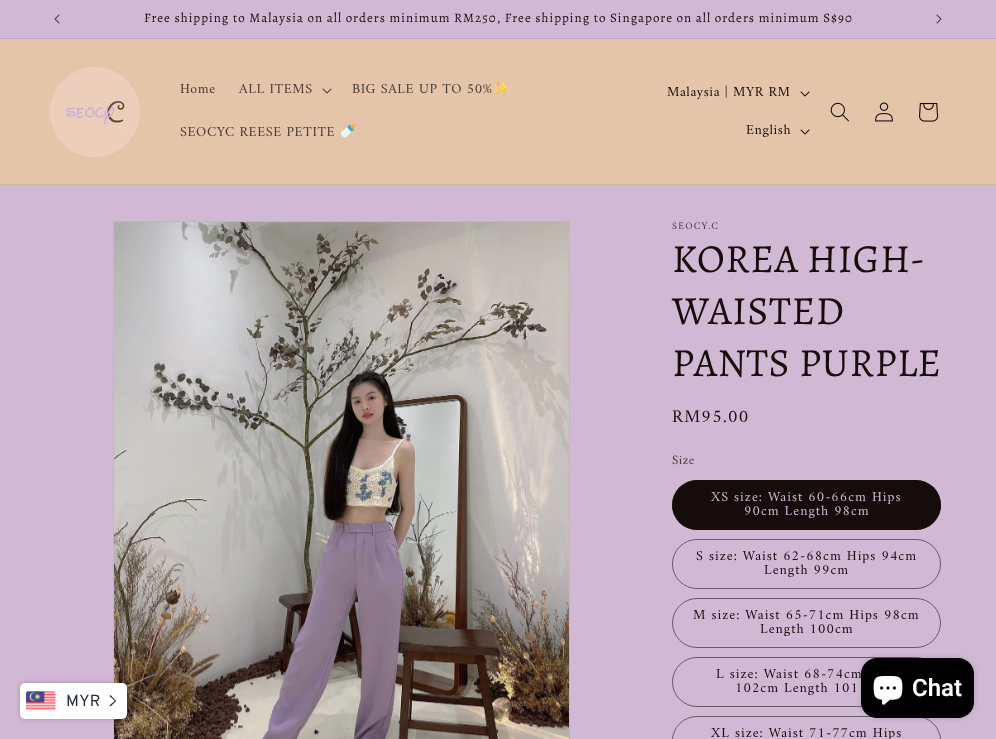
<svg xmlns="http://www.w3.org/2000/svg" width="996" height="739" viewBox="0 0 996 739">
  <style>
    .t1 { font: 13px Alegreya; letter-spacing: 1px; fill: #160c0c; }
    .t2 { font: 14px Amiri; letter-spacing: 0.6px; fill: #4a3a34; }
    .t3 { font: 14px Noto Color Emoji; letter-spacing: 0.6px; fill: #4a3a34; }
    .t4 { font: 14px Amiri; letter-spacing: 0.6px; fill: #160c0c; }
    .t5 { font: 10px Amiri; letter-spacing: 1.25px; fill: #45373e; }
    .t6 { font: 40px Alegreya; letter-spacing: 0.6px; fill: #160c0c; }
    .t7 { font: 18px Amiri; letter-spacing: 1.25px; fill: #160c0c; }
    .t8 { font: 13px Amiri; letter-spacing: 0.5px; fill: #45373e; }
    .t9 { font: 14px Amiri; letter-spacing: 1px; fill: #d1b8d5; }
    .t10 { font: 14px Amiri; letter-spacing: 1px; fill: #160c0c; }
    .t11 { font: 600 24px Roboto; fill: #fff; }
    .t12 { font: 16px Overpass; letter-spacing: 0.6px; fill: #212b36; }
  </style>
  <rect width="100%" height="100%" fill="#d1b8d5"/>
  <rect x="0" y="38" width="996" height="1" fill="#c2aac5"/>
  <image x="54" y="14" width="6" height="10" href="images/1.png"/>
  <text x="144" y="22" class="t1">Free shipping to Malaysia on all orders minimum RM250, Free shipping to Singapore on all orders minimum S$90</text>
  <image x="936" y="14" width="6" height="10" href="images/2.png"/>
  <rect x="0" y="39" width="996" height="145" fill="#e4c5aa"/>
  <rect x="0" y="184" width="996" height="1" fill="#d4b69d"/>
  <image x="50" y="67" width="90" height="90" href="images/3.png"/>
  <text x="180" y="93" class="t2">Home</text>
  <text x="239" y="93" class="t2">ALL ITEMS</text>
  <image x="322" y="88" width="10" height="6" href="images/4.png"/>
  <text x="352" y="93" class="t2">BIG SALE UP TO 50%</text>
  <text x="492" y="93" class="t3">✨</text>
  <text x="180" y="136" class="t2">SEOCYC REESE PETITE</text>
  <text x="339" y="136" class="t3">🍼</text>
  <text x="667" y="96" class="t4">Malaysia | MYR RM</text>
  <image x="800" y="91" width="10" height="6" href="images/5.png"/>
  <text x="746" y="134" class="t4">English</text>
  <image x="800" y="129" width="10" height="6" href="images/5.png"/>
  <image x="830" y="102" width="19" height="20" href="images/6.png"/>
  <image x="875" y="102" width="18" height="20" href="images/7.png"/>
  <image x="919" y="103" width="20" height="19" href="images/8.png"/>
  <rect x="113.5" y="221.5" width="456" height="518" fill="none" stroke="#c8afcb"/>
  <image x="114" y="222" width="455" height="517" href="images/9.png"/>
  <text x="672" y="229" class="t5">SEOCY.C</text>
  <text x="672" y="272" class="t6">KOREA HIGH-</text>
  <text x="672" y="324" class="t6">WAISTED</text>
  <text x="672" y="376" class="t6">PANTS PURPLE</text>
  <text x="672" y="422" class="t7">RM95.00</text>
  <text x="672" y="464" class="t8">Size</text>
  <rect x="672" y="480" width="269" height="50" rx="25" fill="#160c0c"/>
  <rect x="672.5" y="480.5" width="268" height="49" rx="24.5" fill="none" stroke="#160c0c8c"/>
  <text x="711" y="501" class="t9">XS size: Waist 60-66cm Hips</text>
  <text x="744" y="515" class="t9">90cm Length 98cm</text>
  <rect x="672.5" y="539.5" width="268" height="49" rx="24.5" fill="none" stroke="#6a5966"/>
  <text x="696" y="560" class="t10">S size: Waist 62-68cm Hips 94cm</text>
  <text x="764" y="574" class="t10">Length 99cm</text>
  <rect x="672.5" y="598.5" width="268" height="49" rx="24.5" fill="none" stroke="#6a5966"/>
  <text x="693" y="619" class="t10">M size: Waist 65-71cm Hips 98cm</text>
  <text x="760" y="633" class="t10">Length 100cm</text>
  <rect x="672.5" y="657.5" width="268" height="49" rx="24.5" fill="none" stroke="#6a5966"/>
  <text x="716" y="678" class="t10">L size: Waist 68-74cm</text>
  <text x="735" y="692" class="t10">102cm Length 101</text>
  <rect x="672.5" y="716.5" width="268" height="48" rx="24.5" fill="none" stroke="#6a5966"/>
  <text x="711" y="737" class="t10">XL size: Waist 71-77cm Hips</text>
  <rect x="861" y="658" width="113" height="60" rx="16" fill="#00000026" filter="blur(2.5px)"/>
  <rect x="861" y="658" width="113" height="60" rx="16" fill="#000"/>
  <image x="873" y="676" width="30" height="29" href="images/10.png"/>
  <text x="912" y="696" class="t11">Chat</text>
  <rect x="20" y="683" width="107" height="36" rx="5" fill="#212b3640" filter="blur(2.5px)"/>
  <rect x="20" y="683" width="107" height="36" rx="5" fill="#fff"/>
  <image x="26" y="691" width="30" height="20" href="images/11.png"/>
  <text x="66" y="706" class="t12">MYR</text>
  <path d="M109.5 696L110.5 695L116 701L115.5 701.5Z" fill="#212b36"/>
  <path d="M109.5 705.5L115.5 700L116 701L110.5 706.5Z" fill="#212b36"/>
</svg>
